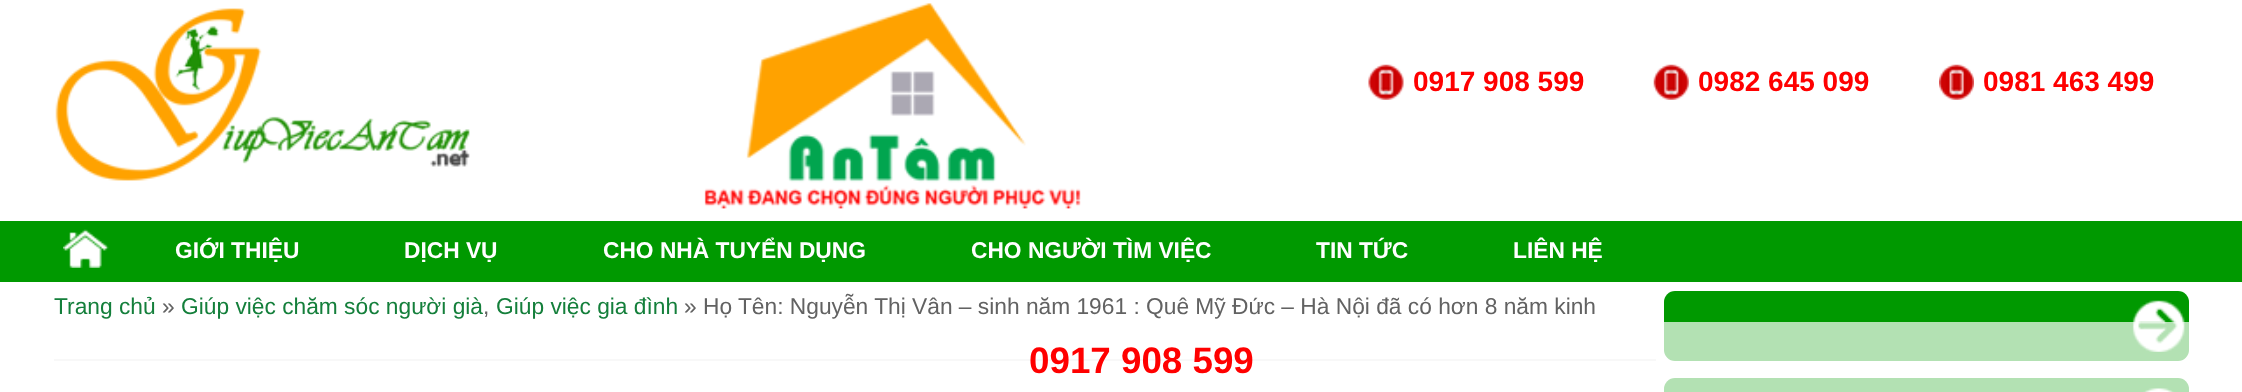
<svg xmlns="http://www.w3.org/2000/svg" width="2242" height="392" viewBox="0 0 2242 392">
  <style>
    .t1 { font: bold 28px Liberation Sans; fill: #f00; }
    .t2 { font: bold 22.75px Liberation Sans; fill: #fff; }
    .t3 { font: 22.75px Liberation Sans; fill: #147f3b; }
    .t4 { font: 22.75px Liberation Sans; fill: #626262; }
    .t5 { font: bold 36.75px Liberation Sans; fill: #f00; }
  </style>
  <rect width="100%" height="100%" fill="#fff"/>
  <image x="55" y="8" width="415" height="173" href="images/1.png"/>
  <image x="704" y="3" width="377" height="206" href="images/2.png"/>
  <image x="1368" y="64" width="36" height="36" href="images/3.png"/>
  <text x="1413" y="91" class="t1">0917 908 599</text>
  <image x="1653" y="64" width="36" height="36" href="images/4.png"/>
  <text x="1698" y="91" class="t1">0982 645 099</text>
  <image x="1939" y="64" width="35" height="36" href="images/5.png"/>
  <text x="1983" y="91" class="t1">0981 463 499</text>
  <rect x="0" y="221" width="2242" height="61" fill="#090"/>
  <image x="63" y="229" width="46" height="39" href="images/6.png"/>
  <text x="175" y="258" class="t2">GIỚI THIỆU</text>
  <text x="404" y="258" class="t2">DỊCH VỤ</text>
  <text x="603" y="258" class="t2">CHO NHÀ TUYỂN DỤNG</text>
  <text x="971" y="258" class="t2">CHO NGƯỜI TÌM VIỆC</text>
  <text x="1316" y="258" class="t2">TIN TỨC</text>
  <text x="1513" y="258" class="t2">LIÊN HỆ</text>
  <rect x="54" y="359" width="1602" height="2" fill="#e8e8e8"/>
  <text x="54" y="314" class="t3">Trang chủ</text>
  <text x="162" y="314" class="t4">»</text>
  <text x="181" y="314" class="t3">Giúp việc chăm sóc người già</text>
  <text x="496" y="314" class="t3">Giúp việc gia đình</text>
  <text x="684" y="314" class="t4">» Họ Tên: Nguyễn Thị Vân – sinh năm 1961 : Quê Mỹ Đức – Hà Nội đã có hơn 8 năm kinh</text>
  <text x="483" y="314" class="t4">,</text>
  <rect x="1664" y="291" width="525" height="70" rx="11" fill="#090"/>
  <image x="2132" y="300" width="53" height="52" href="images/7.png"/>
  <rect x="1664" y="378" width="525" height="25" rx="11" fill="#090"/>
  <image x="2143" y="388" width="32" height="4" href="images/8.png"/>
  <rect x="54" y="322" width="2135" height="70" fill="#ffffffb3"/>
  <text x="1029" y="373" class="t5">0917 908 599</text>
</svg>
